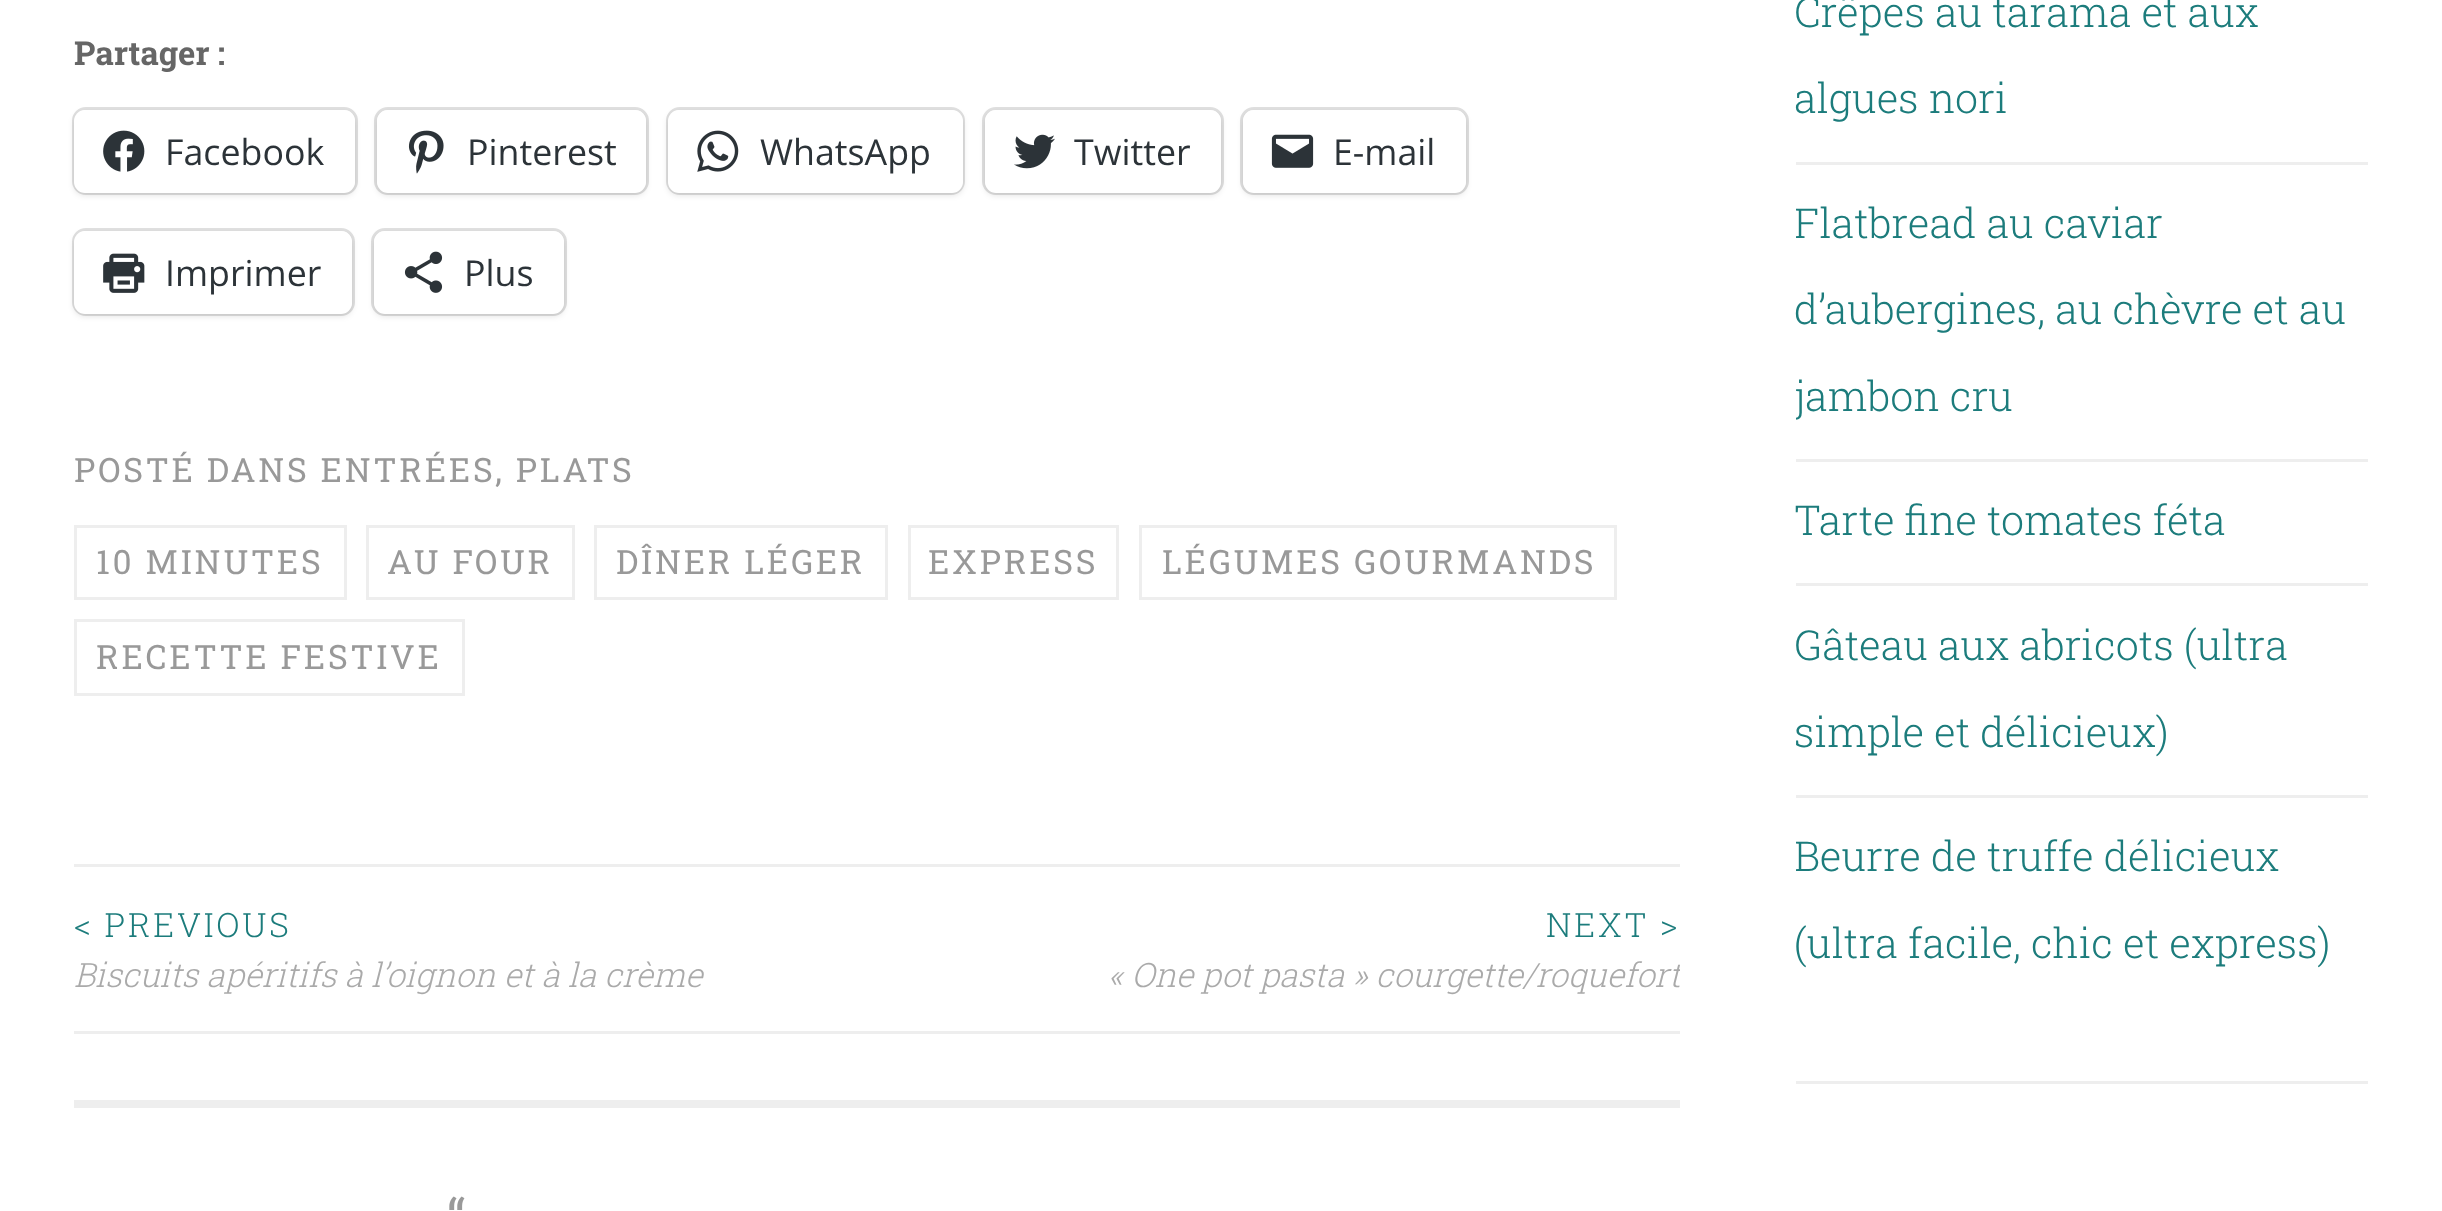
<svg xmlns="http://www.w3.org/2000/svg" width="2442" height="1211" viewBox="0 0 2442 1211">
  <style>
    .t1 { font: bold 33px Roboto Slab; fill: #666; }
    .t2 { font: 35.75px Open Sans; fill: #2c3338; }
    .t3 { font: 33.5px Roboto Slab; letter-spacing: 2.75px; fill: #999; }
    .t4 { font: 300 33.5px Roboto Slab; letter-spacing: 2.75px; fill: #1c7c7c; }
    .t5 { font: italic 300 33.5px Roboto Slab; fill: #aaa; }
    .t6 { font: 50px Roboto Slab; fill: #999; }
    .t7 { font: 300 41.25px Roboto Slab; fill: #1c7c7c; }
  </style>
  <defs>
    <clipPath id="clip1"><rect x="74" y="866" width="1606" height="165"/></clipPath>
    <clipPath id="clip2"><rect x="1796" y="0" width="572" height="1081"/></clipPath>
  </defs>
  <rect width="100%" height="100%" fill="#fff"/>
  <text x="74" y="65" class="t1">Partager :</text>
  <rect x="73.5" y="108.5" width="283" height="85" rx="12.5" fill="none" stroke="#e0e0e0" stroke-width="3"/>
  <rect x="74" y="113" width="281" height="82" rx="11" fill="#0000001f" filter="blur(3px)"/>
  <rect x="74" y="110" width="281" height="83" rx="11" fill="#fff"/>
  <image x="103" y="130" width="42" height="42" href="images/1.png"/>
  <text x="165" y="165" class="t2">Facebook</text>
  <rect x="375.5" y="108.5" width="272" height="85" rx="12.5" fill="none" stroke="#e0e0e0" stroke-width="3"/>
  <rect x="377" y="113" width="269" height="82" rx="11" fill="#0000001f" filter="blur(3px)"/>
  <rect x="377" y="110" width="269" height="83" rx="11" fill="#fff"/>
  <image x="408" y="130" width="36" height="44" href="images/2.png"/>
  <text x="467" y="165" class="t2">Pinterest</text>
  <rect x="667.5" y="108.5" width="296" height="85" rx="12.5" fill="none" stroke="#e0e0e0" stroke-width="3"/>
  <rect x="668" y="113" width="295" height="82" rx="11" fill="#0000001f" filter="blur(3px)"/>
  <rect x="668" y="110" width="295" height="83" rx="11" fill="#fff"/>
  <image x="697" y="130" width="42" height="42" href="images/3.png"/>
  <text x="760" y="165" class="t2">WhatsApp</text>
  <rect x="983.5" y="108.5" width="239" height="85" rx="12.5" fill="none" stroke="#e0e0e0" stroke-width="3"/>
  <rect x="985" y="113" width="236" height="82" rx="11" fill="#0000001f" filter="blur(3px)"/>
  <rect x="985" y="110" width="236" height="83" rx="11" fill="#fff"/>
  <image x="1014" y="134" width="41" height="35" href="images/4.png"/>
  <text x="1074" y="165" class="t2">Twitter</text>
  <rect x="1241.5" y="108.5" width="226" height="85" rx="12.5" fill="none" stroke="#e0e0e0" stroke-width="3"/>
  <rect x="1243" y="113" width="223" height="82" rx="11" fill="#0000001f" filter="blur(3px)"/>
  <rect x="1243" y="110" width="223" height="83" rx="11" fill="#fff"/>
  <image x="1271" y="134" width="43" height="34" href="images/5.png"/>
  <text x="1333" y="165" class="t2">E-mail</text>
  <rect x="73.5" y="229.5" width="280" height="85" rx="12.5" fill="none" stroke="#e0e0e0" stroke-width="3"/>
  <rect x="74" y="234" width="278" height="82" rx="11" fill="#0000001f" filter="blur(3px)"/>
  <rect x="74" y="231" width="278" height="83" rx="11" fill="#fff"/>
  <image x="103" y="253" width="42" height="40" href="images/6.png"/>
  <text x="165" y="286" class="t2">Imprimer</text>
  <rect x="372.5" y="229.5" width="193" height="85" rx="12.5" fill="none" stroke="#e0e0e0" stroke-width="3"/>
  <rect x="374" y="234" width="190" height="82" rx="11" fill="#0000001f" filter="blur(3px)"/>
  <rect x="374" y="231" width="190" height="83" rx="11" fill="#fff"/>
  <image x="404" y="251" width="39" height="42" href="images/7.png"/>
  <text x="464" y="286" class="t2">Plus</text>
  <text x="74" y="482" class="t3">POSTÉ DANS ENTRÉES, PLATS</text>
  <rect x="75.5" y="526.5" width="270" height="72" fill="none" stroke="#eee" stroke-width="3"/>
  <text x="96" y="574" class="t3">10 MINUTES</text>
  <rect x="367.5" y="526.5" width="206" height="72" fill="none" stroke="#eee" stroke-width="3"/>
  <text x="387" y="574" class="t3">AU FOUR</text>
  <rect x="595.5" y="526.5" width="291" height="72" fill="none" stroke="#eee" stroke-width="3"/>
  <text x="616" y="574" class="t3">DÎNER LÉGER</text>
  <rect x="909.5" y="526.5" width="208" height="72" fill="none" stroke="#eee" stroke-width="3"/>
  <text x="928" y="574" class="t3">EXPRESS</text>
  <rect x="1140.5" y="526.5" width="475" height="72" fill="none" stroke="#eee" stroke-width="3"/>
  <text x="1162" y="574" class="t3">LÉGUMES GOURMANDS</text>
  <rect x="75.5" y="620.5" width="388" height="74" fill="none" stroke="#eee" stroke-width="3"/>
  <text x="96" y="669" class="t3">RECETTE FESTIVE</text>
  <rect x="74" y="864" width="1606" height="3" fill="#eee"/>
  <rect x="74" y="1031" width="1606" height="3" fill="#eee"/>
  <text x="74" y="937" class="t4">&lt; PREVIOUS</text>
  <text x="74" y="987" class="t5">Biscuits apéritifs à l’oignon et à la crème</text>
  <text x="1546" y="937" class="t4">NEXT &gt;</text>
  <g clip-path="url(#clip1)">
    <text x="1108" y="987" class="t5">« One pot pasta » courgette/roquefort</text>
  </g>
  <rect x="74" y="1100" width="1606" height="8" fill="#eee"/>
  <text x="447" y="1235" class="t6">“</text>
  <rect x="1796" y="1081" width="572" height="3" fill="#eee"/>
  <text x="1794" y="27" class="t7">Crêpes au tarama et aux</text>
  <text x="1794" y="113" class="t7">algues nori</text>
  <rect x="1796" y="162" width="572" height="3" fill="#eee"/>
  <g clip-path="url(#clip2)">
    <text x="1794" y="238" class="t7">Flatbread au caviar</text>
  </g>
  <text x="1794" y="324" class="t7">d’aubergines, au chèvre et au</text>
  <g clip-path="url(#clip2)">
    <text x="1794" y="411" class="t7">jambon cru</text>
  </g>
  <rect x="1796" y="459" width="572" height="3" fill="#eee"/>
  <text x="1794" y="535" class="t7">Tarte fine tomates féta</text>
  <rect x="1796" y="583" width="572" height="3" fill="#eee"/>
  <text x="1794" y="660" class="t7">Gâteau aux abricots (ultra</text>
  <text x="1794" y="747" class="t7">simple et délicieux)</text>
  <rect x="1796" y="795" width="572" height="3" fill="#eee"/>
  <g clip-path="url(#clip2)">
    <text x="1794" y="871" class="t7">Beurre de truffe délicieux</text>
  </g>
  <text x="1794" y="958" class="t7">(ultra facile, chic et express)</text>
</svg>
